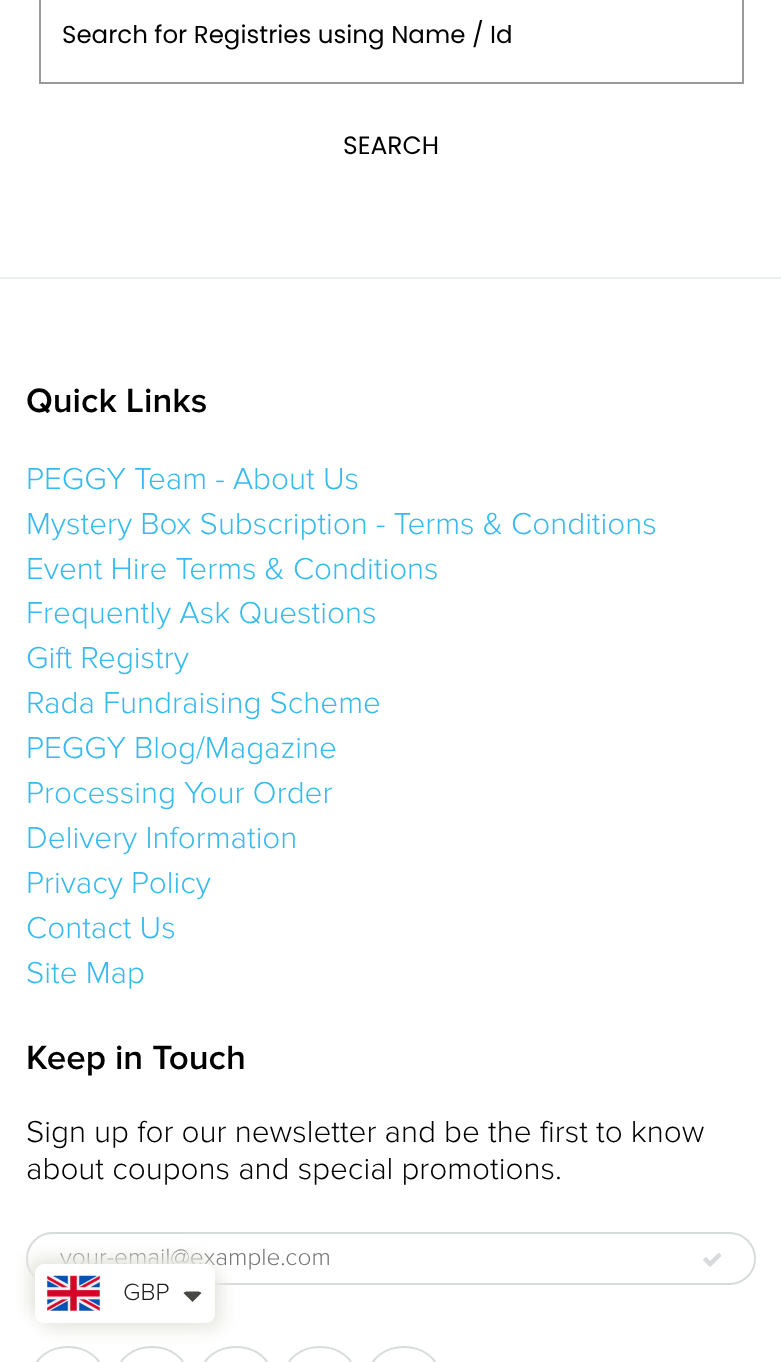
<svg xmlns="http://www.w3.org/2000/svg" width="781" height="1362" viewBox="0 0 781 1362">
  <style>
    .t1 { font: 24.5px Poppins; fill: #000; }
    .t2 { font: 25px Poppins; fill: #000; }
    .t3 { font: 600 35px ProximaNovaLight; fill: #000; }
    .t4 { font: 300 31.5px ProximaNovaLight; fill: #37bbec; }
    .t5 { font: 300 31.5px ProximaNovaLight; fill: #000; }
    .t6 { font: 300 24.5px ProximaNovaLight; fill: #757575; }
    .t7 { font: 300 24.5px ProximaNovaLight; fill: #1e1e1e; }
  </style>
  <rect width="100%" height="100%" fill="#fff"/>
  <rect x="40" y="-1" width="703" height="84" fill="none" stroke="#999" stroke-width="2"/>
  <text x="62" y="43" class="t1">Search for Registries using Name / Id</text>
  <text x="343" y="154" class="t2">SEARCH</text>
  <rect x="0" y="277" width="781" height="2" fill="#ecefef"/>
  <text x="26" y="412" class="t3">Quick Links</text>
  <text x="26" y="489" class="t4">PEGGY Team - About Us</text>
  <text x="26" y="534" class="t4">Mystery Box Subscription - Terms &amp; Conditions</text>
  <text x="26" y="579" class="t4">Event Hire Terms &amp; Conditions</text>
  <text x="26" y="623" class="t4">Frequently Ask Questions</text>
  <text x="26" y="668" class="t4">Gift Registry</text>
  <text x="26" y="713" class="t4">Rada Fundraising Scheme</text>
  <text x="26" y="758" class="t4">PEGGY Blog/Magazine</text>
  <text x="26" y="803" class="t4">Processing Your Order</text>
  <text x="26" y="848" class="t4">Delivery Information</text>
  <text x="26" y="893" class="t4">Privacy Policy</text>
  <text x="26" y="938" class="t4">Contact Us</text>
  <text x="26" y="983" class="t4">Site Map</text>
  <text x="26" y="1069" class="t3">Keep in Touch</text>
  <text x="26" y="1142" class="t5">Sign up for our newsletter and be the first to know</text>
  <text x="26" y="1179" class="t5">about coupons and special promotions.</text>
  <rect x="27" y="1233" width="728" height="51" rx="25.5" fill="none" stroke="#d7dbdb" stroke-width="2"/>
  <text x="60" y="1265" class="t6">your-email@example.com</text>
  <image x="703" y="1253" width="19" height="14" href="images/1.png"/>
  <rect x="34" y="1347" width="68" height="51" rx="34" fill="none" stroke="#d7dbdb" stroke-width="2"/>
  <rect x="118" y="1347" width="68" height="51" rx="34" fill="none" stroke="#d7dbdb" stroke-width="2"/>
  <rect x="202" y="1347" width="68" height="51" rx="34" fill="none" stroke="#d7dbdb" stroke-width="2"/>
  <rect x="286" y="1347" width="68" height="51" rx="34" fill="none" stroke="#d7dbdb" stroke-width="2"/>
  <rect x="370" y="1347" width="68" height="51" rx="34" fill="none" stroke="#d7dbdb" stroke-width="2"/>
  <rect x="28" y="1257" width="180" height="59" rx="9" fill="#e8e8e2" filter="blur(8px)"/>
  <rect x="42" y="1271" width="180" height="59" rx="9" fill="#e8e8e2" filter="blur(8px)"/>
  <rect x="35" y="1264" width="180" height="59" rx="9" fill="#fff"/>
  <image x="47" y="1275" width="53" height="36" href="images/2.png"/>
  <text x="123" y="1300" class="t7">GBP</text>
  <path d="M187 1291.5C186 1291.5 184.5 1292 183.5 1293L192.5 1302L201.5 1293C200.5 1292 199 1291.5 198 1291.5Z" fill="#474942"/>
</svg>
